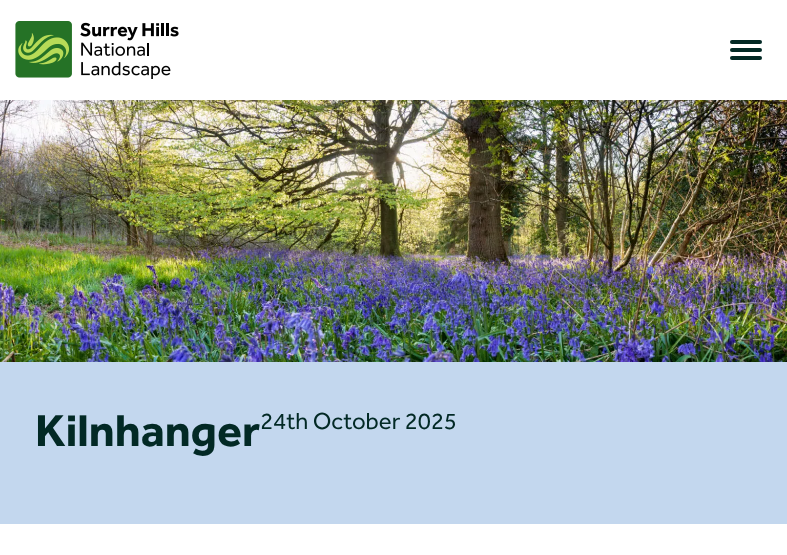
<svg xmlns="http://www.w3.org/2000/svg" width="787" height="555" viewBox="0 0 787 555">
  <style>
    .t1 { font: bold 46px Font; fill: #022925; }
    .t2 { font: 24px Font; fill: #022925; }
  </style>
  <rect width="100%" height="100%" fill="#fff"/>
  <image x="15" y="21" width="164" height="58" href="images/1.png"/>
  <rect x="730" y="40" width="32" height="4" rx="2" fill="#022925"/>
  <rect x="730" y="48" width="32" height="4" rx="2" fill="#022925"/>
  <rect x="730" y="56" width="32" height="4" rx="2" fill="#022925"/>
  <image x="0" y="100" width="787" height="262" href="images/2.png"/>
  <rect x="0" y="362" width="787" height="162" fill="#c3d7ee"/>
  <text x="35" y="446" class="t1">Kilnhanger</text>
  <text x="260" y="429" class="t2">24th October 2025</text>
</svg>
